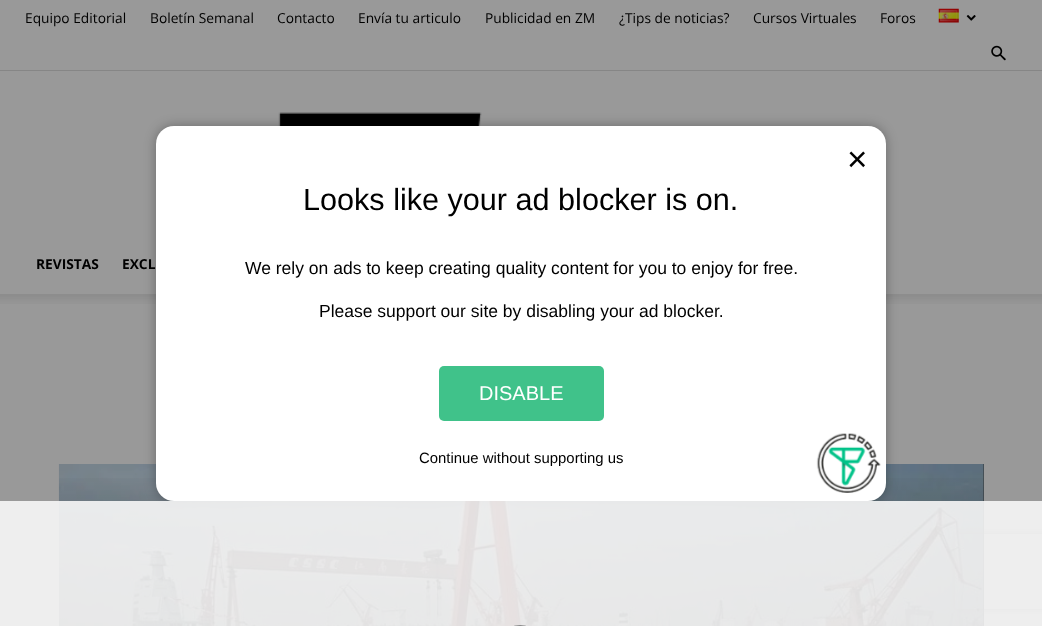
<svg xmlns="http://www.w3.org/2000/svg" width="1042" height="626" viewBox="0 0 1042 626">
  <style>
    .t1 { font: 13.75px Open Sans; fill: #000; }
    .t2 { font: bold 13.75px Open Sans; fill: #000; }
    .t3 { font: 35px Liberation Sans; fill: #000; }
    .t4 { font: 30.6px Liberation Sans; fill: #000; }
    .t5 { font: 17.5px Liberation Sans; fill: #000; }
    .t6 { font: 20px Liberation Sans; fill: #fff; }
    .t7 { font: 14.9px Liberation Sans; fill: #000; }
  </style>
  <defs>
    <clipPath id="clip1"><path d="M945 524H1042V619H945ZM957.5 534H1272.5C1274 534 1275 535 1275 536.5V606.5C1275 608 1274 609 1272.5 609H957.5C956 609 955 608 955 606.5V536.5C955 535 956 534 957.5 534Z" clip-rule="evenodd"/></clipPath>
    <linearGradient id="g1" gradientUnits="userSpaceOnUse" x1="521" y1="464" x2="521" y2="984"><stop offset="0" stop-color="#000" stop-opacity="0"/><stop offset="1" stop-color="#000" stop-opacity="0.8"/></linearGradient>
  </defs>
  <rect width="100%" height="100%" fill="#999"/>
  <rect x="0" y="70" width="1042" height="1" fill="#868686"/>
  <text x="25" y="23" class="t1">Equipo Editorial</text>
  <text x="150" y="23" class="t1">Boletín Semanal</text>
  <text x="277" y="23" class="t1">Contacto</text>
  <text x="358" y="23" class="t1">Envía tu articulo</text>
  <text x="485" y="23" class="t1">Publicidad en ZM</text>
  <text x="619" y="23" class="t1">¿Tips de noticias?</text>
  <text x="753" y="23" class="t1">Cursos Virtuales</text>
  <text x="880" y="23" class="t1">Foros</text>
  <image x="938" y="8" width="21" height="15" href="images/1.png"/>
  <image x="966" y="15" width="10" height="6" href="images/2.png"/>
  <image x="991" y="45" width="15" height="16" href="images/3.png"/>
  <image x="278" y="112" width="204" height="14" href="images/4.png"/>
  <text x="36" y="269" class="t2">REVISTAS</text>
  <text x="122" y="269" class="t2">EXCL</text>
  <image x="0" y="294" width="1042" height="10" href="images/5.png"/>
  <rect x="983" y="464" width="1" height="162" fill="#292929"/>
  <image x="58" y="464" width="926" height="162" href="images/6.png"/>
  <g clip-path="url(#clip1)">
    <rect x="955" y="534" width="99" height="75" rx="2.5" fill="#4d4d4d" filter="blur(3px)"/>
  </g>
  <rect x="59" y="478" width="925" height="148" fill="url(#g1)"/>
  <rect x="156" y="126" width="730" height="375" rx="18" fill="#0000004d" filter="blur(6px)"/>
  <rect x="156" y="126" width="730" height="375" rx="18" fill="#fff"/>
  <text x="847" y="171" class="t3">×</text>
  <text x="303" y="210" class="t4">Looks like your ad blocker is on.</text>
  <text x="245" y="274" class="t5">We rely on ads to keep creating quality content for you to enjoy for free.</text>
  <text x="319" y="317" class="t5">Please support our site by disabling your ad blocker.</text>
  <rect x="439" y="366" width="165" height="55" rx="5" fill="#40c28a"/>
  <text x="479" y="400" class="t6">DISABLE</text>
  <text x="419" y="463" class="t7">Continue without supporting us</text>
  <image x="816" y="433" width="65" height="60" href="images/7.png"/>
  <rect x="0" y="501" width="1042" height="125" fill="#f7f7f7e6"/>
  <rect x="506.5" y="625.5" width="27" height="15" rx="13.5" fill="none" stroke="#f7f7f7bf"/>
  <rect x="506.5" y="625.5" width="27" height="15" rx="13.5" fill="none" stroke="#888"/>
</svg>
